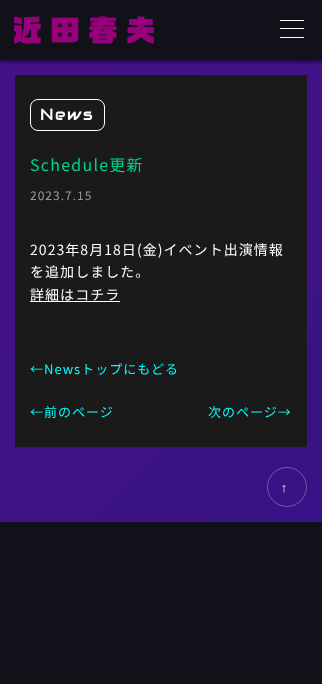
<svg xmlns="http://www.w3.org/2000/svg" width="322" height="684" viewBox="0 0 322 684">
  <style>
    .t1 { font: 16px Audiowide; letter-spacing: 1.5px; fill: #fff; }
    .t2 { font: 16px Noto Sans JP; letter-spacing: 1.25px; fill: #00d488; }
    .t3 { font: 12px Noto Sans JP; letter-spacing: 1px; fill: #999; }
    .t4 { font: 14px Noto Sans JP; letter-spacing: 1.05px; fill: #fff; }
    .t5 { font: 13px Noto Sans JP; letter-spacing: 1px; fill: #0ff; }
  </style>
  <defs>
    <linearGradient id="g1" gradientUnits="userSpaceOnUse" x1="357" y1="487" x2="-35" y2="95"><stop offset="0" stop-color="#381286"/><stop offset="1" stop-color="#451286"/></linearGradient>
    <clipPath id="clip1"><rect x="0" y="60" width="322" height="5"/></clipPath>
  </defs>
  <rect width="100%" height="100%" fill="#111219"/>
  <rect x="0" y="60" width="322" height="462" fill="url(#g1)"/>
  <g clip-path="url(#clip1)">
    <rect x="0" y="3" width="322" height="60" fill="#00000066" filter="blur(1.5px)"/>
  </g>
  <image x="14" y="16" width="140" height="28" href="images/1.png"/>
  <rect x="280" y="28" width="24" height="1" fill="#fff"/>
  <rect x="280" y="20" width="24" height="1" fill="#fff"/>
  <rect x="280" y="37" width="24" height="1" fill="#fff"/>
  <rect x="15" y="75" width="292" height="372" fill="#1a1a1a"/>
  <rect x="30.5" y="99.5" width="74" height="31" rx="7.5" fill="none" stroke="#fff"/>
  <text x="40" y="120" class="t1">News</text>
  <text x="30" y="171" class="t2">Schedule更新</text>
  <text x="30" y="200" class="t3">2023.7.15</text>
  <text x="30" y="255" class="t4">2023年8月18日(金)イベント出演情報</text>
  <text x="30" y="277" class="t4">を追加しました。</text>
  <rect x="30" y="301" width="90" height="1" fill="#fff"/>
  <text x="30" y="300" class="t4">詳細はコチラ</text>
  <text x="30" y="374" class="t5">←Newsトップにもどる</text>
  <text x="30" y="417" class="t5">←前のページ</text>
  <text x="208" y="417" class="t5">次のページ→</text>
  <image x="267" y="467" width="40" height="40" href="images/2.png"/>
</svg>
